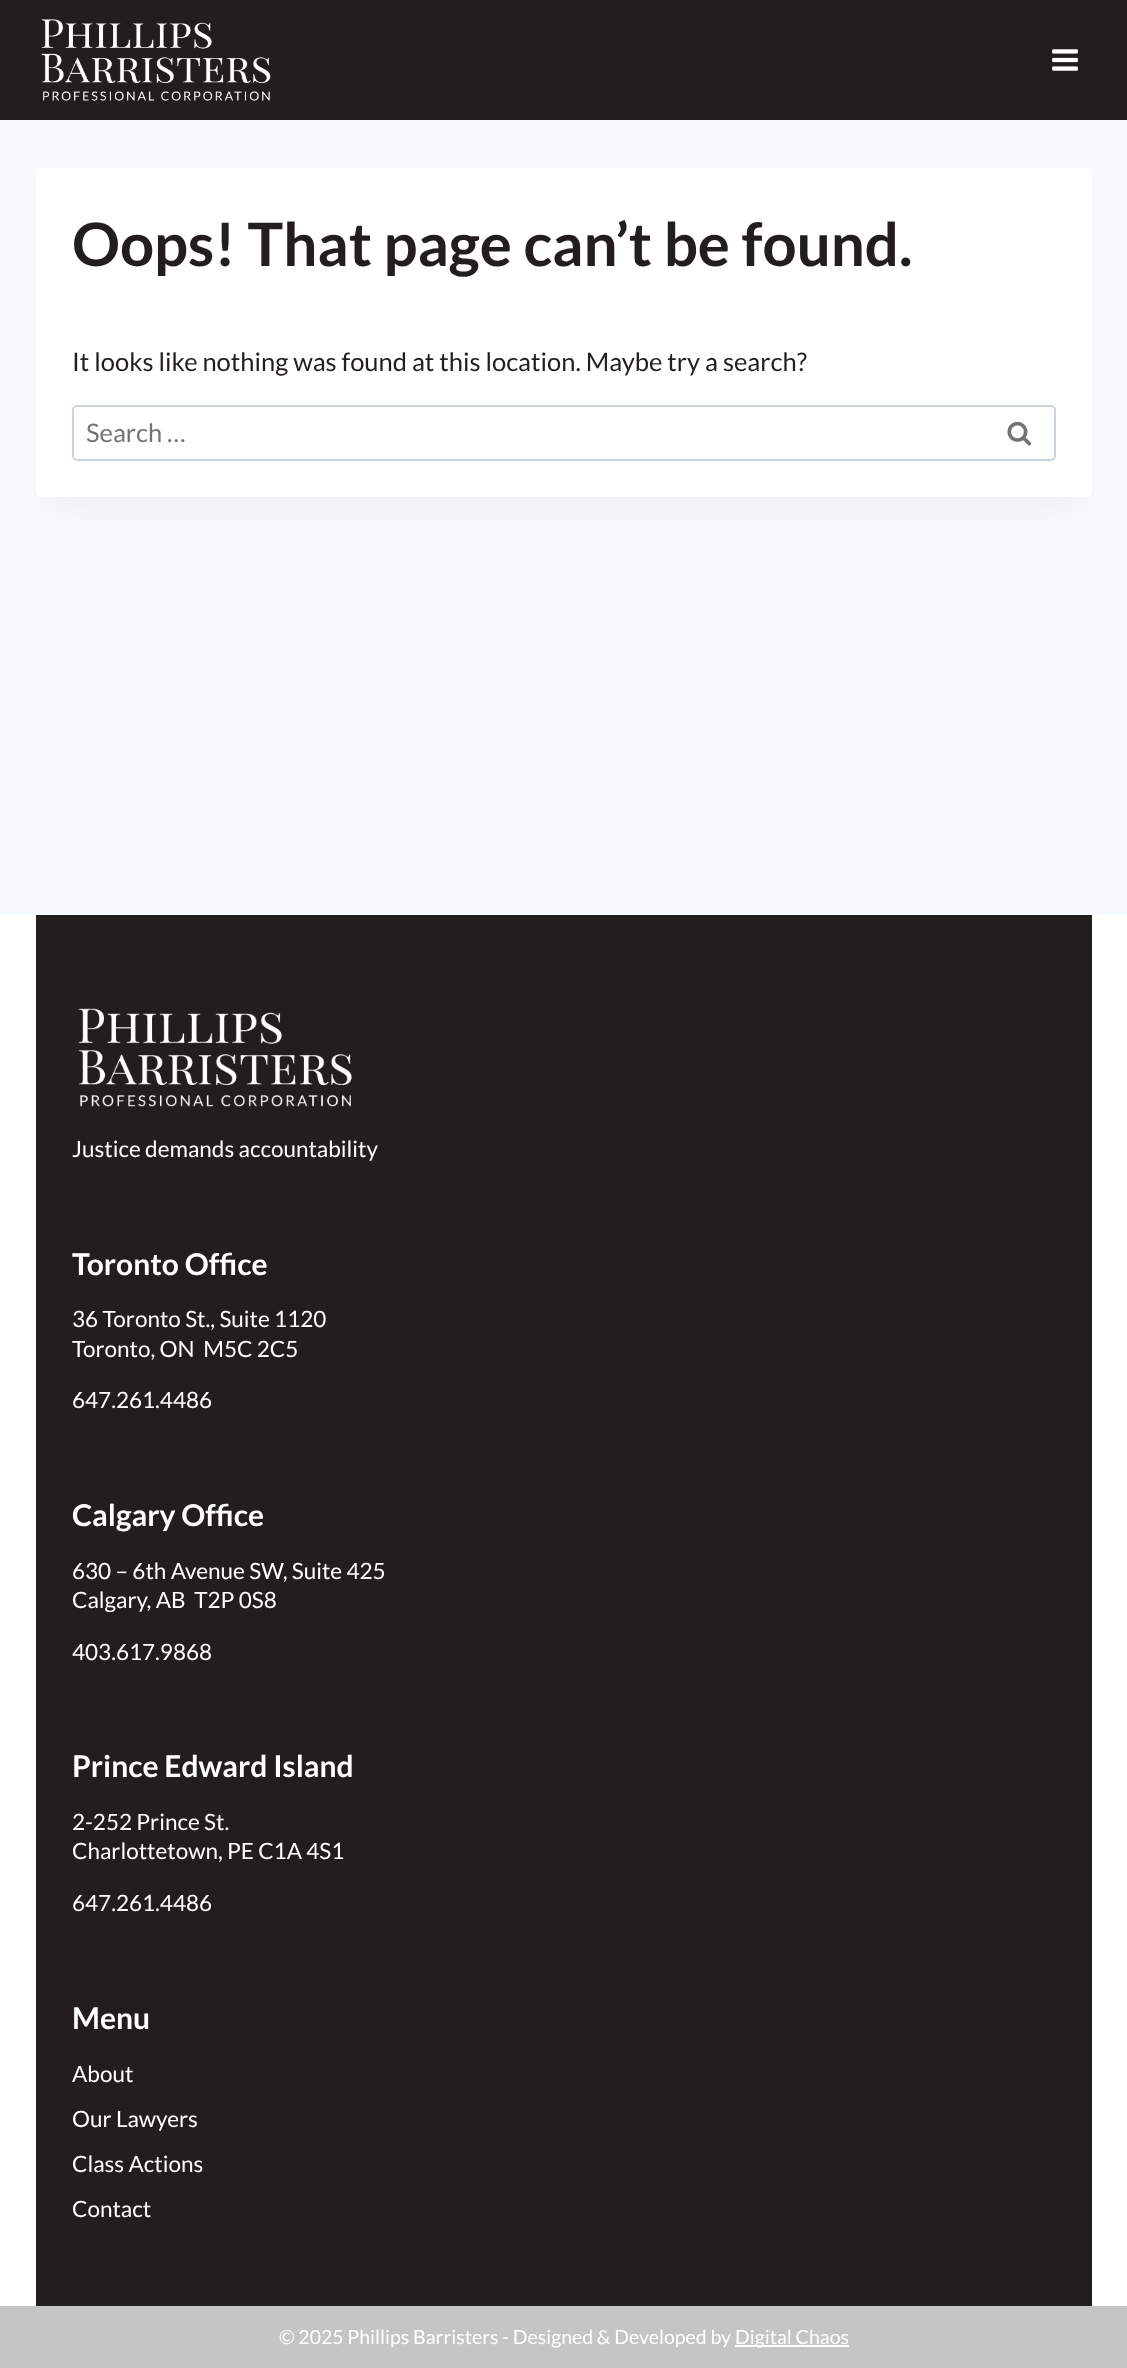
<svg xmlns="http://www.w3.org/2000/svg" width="1127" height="2368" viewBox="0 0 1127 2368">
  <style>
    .t1 { font: bold 60px Lato; fill: #221e1e; }
    .t2 { font: 25.5px Lato; fill: #221e1e; }
    .t3 { font: 25.5px Lato; fill: #747474; }
    .t4 { font: 22.5px Lato; fill: #fff; }
    .t5 { font: bold 30px Lato; fill: #fff; }
    .t6 { font: 19.5px Lato; fill: #fff; }
  </style>
  <rect width="100%" height="100%" fill="#f7fafc"/>
  <rect x="0" y="0" width="1127" height="120" fill="#221e1e"/>
  <image x="41" y="19" width="230" height="82" href="images/1.png"/>
  <image x="1052" y="49" width="26" height="22" href="images/2.png"/>
  <rect x="51" y="206" width="1026" height="298" fill="#0000000d" filter="blur(19px)"/>
  <rect x="36" y="168" width="1056" height="329" rx="6" fill="#fff"/>
  <text x="72" y="266" class="t1">Oops! That page can’t be found.</text>
  <text x="72" y="371" class="t2">It looks like nothing was found at this location. Maybe try a search?</text>
  <rect x="73" y="406" width="982" height="54" rx="4" fill="none" stroke="#cbd5e0" stroke-width="2"/>
  <text x="86" y="442" class="t3">Search …</text>
  <image x="1007" y="421" width="25" height="25" href="images/3.png"/>
  <rect x="0" y="915" width="1127" height="1391" fill="#fff"/>
  <rect x="36" y="915" width="1056" height="1391" fill="#221e1e"/>
  <image x="78" y="1008" width="274" height="99" href="images/4.png"/>
  <text x="72" y="1157" class="t4">Justice demands accountability</text>
  <text x="72" y="1275" class="t5">Toronto Office</text>
  <text x="72" y="1327" class="t4">36 Toronto St., Suite 1120</text>
  <text x="72" y="1357" class="t4" xml:space="preserve">Toronto, ON  M5C 2C5</text>
  <text x="72" y="1408" class="t4">647.261.4486</text>
  <text x="72" y="1526" class="t5">Calgary Office</text>
  <text x="72" y="1579" class="t4">630 – 6th Avenue SW, Suite 425</text>
  <text x="72" y="1608" class="t4" xml:space="preserve">Calgary, AB  T2P 0S8</text>
  <text x="72" y="1660" class="t4">403.617.9868</text>
  <text x="72" y="1777" class="t5">Prince Edward Island</text>
  <text x="72" y="1830" class="t4">2-252 Prince St.</text>
  <text x="72" y="1859" class="t4">Charlottetown, PE C1A 4S1</text>
  <text x="72" y="1911" class="t4">647.261.4486</text>
  <text x="72" y="2029" class="t5">Menu</text>
  <text x="72" y="2082" class="t4">About</text>
  <text x="72" y="2127" class="t4">Our Lawyers</text>
  <text x="72" y="2172" class="t4">Class Actions</text>
  <text x="72" y="2217" class="t4">Contact</text>
  <rect x="0" y="2306" width="1127" height="62" fill="#c6c5c5"/>
  <text x="279" y="2344" class="t6">© 2025 Phillips Barristers - Designed &amp; Developed by</text>
  <rect x="735" y="2345" width="114" height="2" fill="#fff"/>
  <text x="735" y="2344" class="t6">Digital Chaos</text>
</svg>
